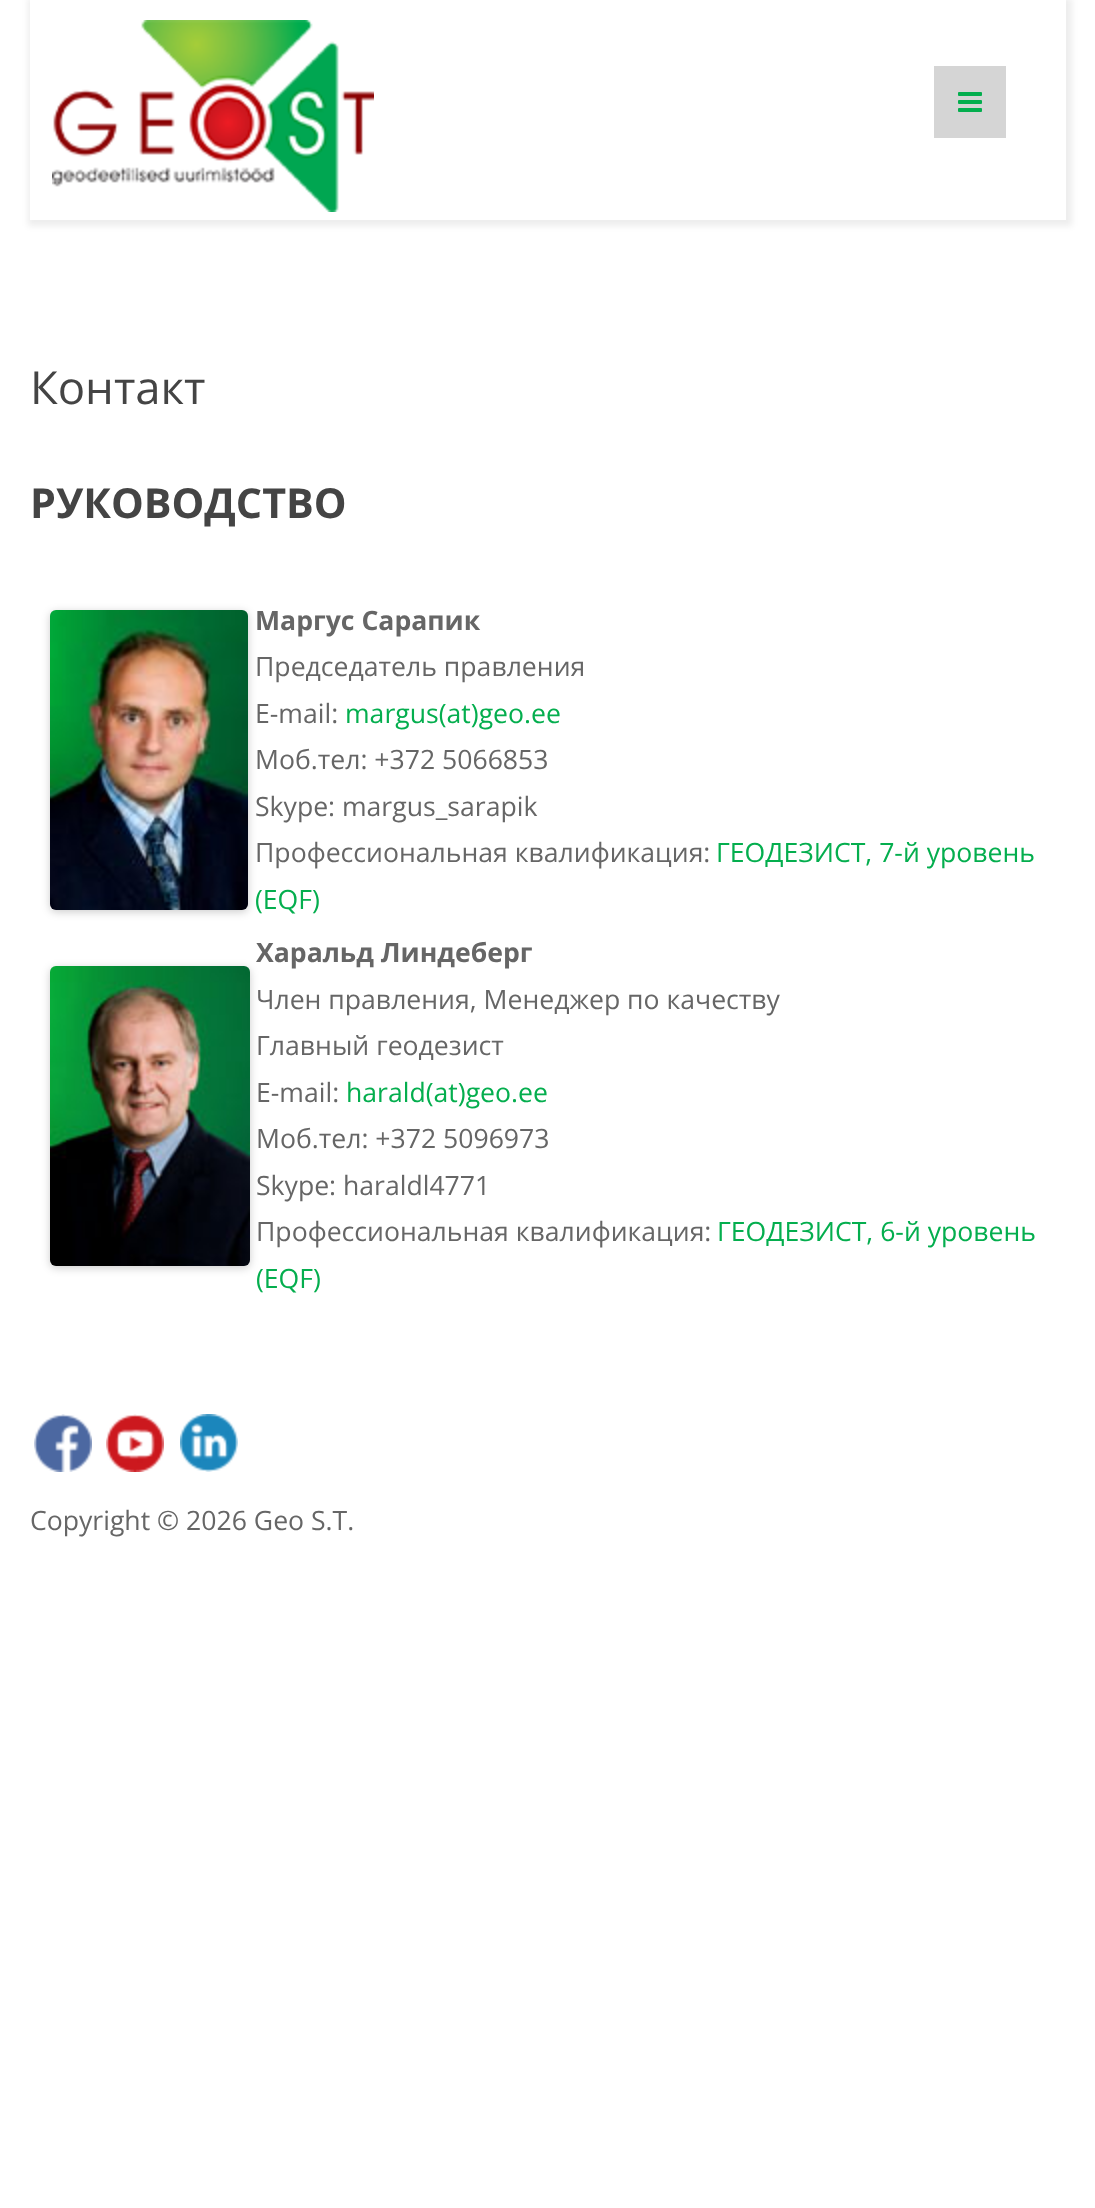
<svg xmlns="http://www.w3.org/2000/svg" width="1095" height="2208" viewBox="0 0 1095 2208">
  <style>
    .t1 { font: 45.5px Open Sans; fill: #444; }
    .t2 { font: bold 41.25px Open Sans; fill: #444; }
    .t3 { font: bold 26.6px Open Sans; fill: #666; }
    .t4 { font: 26.6px Open Sans; fill: #666; }
    .t5 { font: 26.6px Open Sans; fill: #04ae4e; }
  </style>
  <defs>
    <clipPath id="clip1"><path d="M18 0H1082V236H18ZM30 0H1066V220H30Z" clip-rule="evenodd"/></clipPath>
  </defs>
  <rect width="100%" height="100%" fill="#fff"/>
  <g clip-path="url(#clip1)">
    <rect x="28" y="-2" width="1044" height="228" fill="#00000012" filter="blur(3px)"/>
  </g>
  <image x="52" y="20" width="322" height="192" href="images/1.png"/>
  <rect x="934" y="66" width="72" height="72" fill="#d5d5d5"/>
  <image x="958" y="92" width="24" height="20" href="images/2.png"/>
  <text x="30" y="404" class="t1">Контакт</text>
  <text x="30" y="518" class="t2">РУКОВОДСТВО</text>
  <rect x="50" y="612" width="198" height="300" rx="6" fill="#00000033" filter="blur(4px)"/>
  <image x="50" y="610" width="198" height="300" href="images/3.png"/>
  <text x="255" y="630" class="t3">Маргус Сарапик</text>
  <text x="255" y="676" class="t4">Председатель правления</text>
  <text x="255" y="723" class="t4">E-mail:</text>
  <text x="345" y="723" class="t5">margus(at)geo.ee</text>
  <text x="255" y="769" class="t4">Моб.тел: +372 5066853</text>
  <text x="255" y="816" class="t4">Skype: margus_sarapik</text>
  <text x="255" y="862" class="t4">Профессиональная квалификация:</text>
  <text x="716" y="862" class="t5">ГЕОДЕЗИСТ, 7-й уровень</text>
  <text x="255" y="909" class="t5">(EQF)</text>
  <rect x="50" y="968" width="200" height="300" rx="6" fill="#00000033" filter="blur(4px)"/>
  <image x="50" y="966" width="200" height="300" href="images/4.png"/>
  <text x="256" y="962" class="t3">Харальд Линдеберг</text>
  <text x="256" y="1009" class="t4">Член правления, Менеджер по качеству</text>
  <text x="256" y="1055" class="t4">Главный геодезист</text>
  <text x="256" y="1102" class="t4">E-mail:</text>
  <text x="346" y="1102" class="t5">harald(at)geo.ee</text>
  <text x="256" y="1148" class="t4">Моб.тел: +372 5096973</text>
  <text x="256" y="1195" class="t4">Skype: haraldl4771</text>
  <text x="256" y="1241" class="t4">Профессиональная квалификация:</text>
  <text x="717" y="1241" class="t5">ГЕОДЕЗИСТ, 6-й уровень</text>
  <text x="256" y="1288" class="t5">(EQF)</text>
  <image x="34" y="1414" width="58" height="58" href="images/5.png"/>
  <image x="106" y="1414" width="58" height="58" href="images/6.png"/>
  <image x="180" y="1414" width="58" height="58" href="images/7.png"/>
  <text x="30" y="1530" class="t4">Copyright © 2026 Geo S.T.</text>
</svg>
